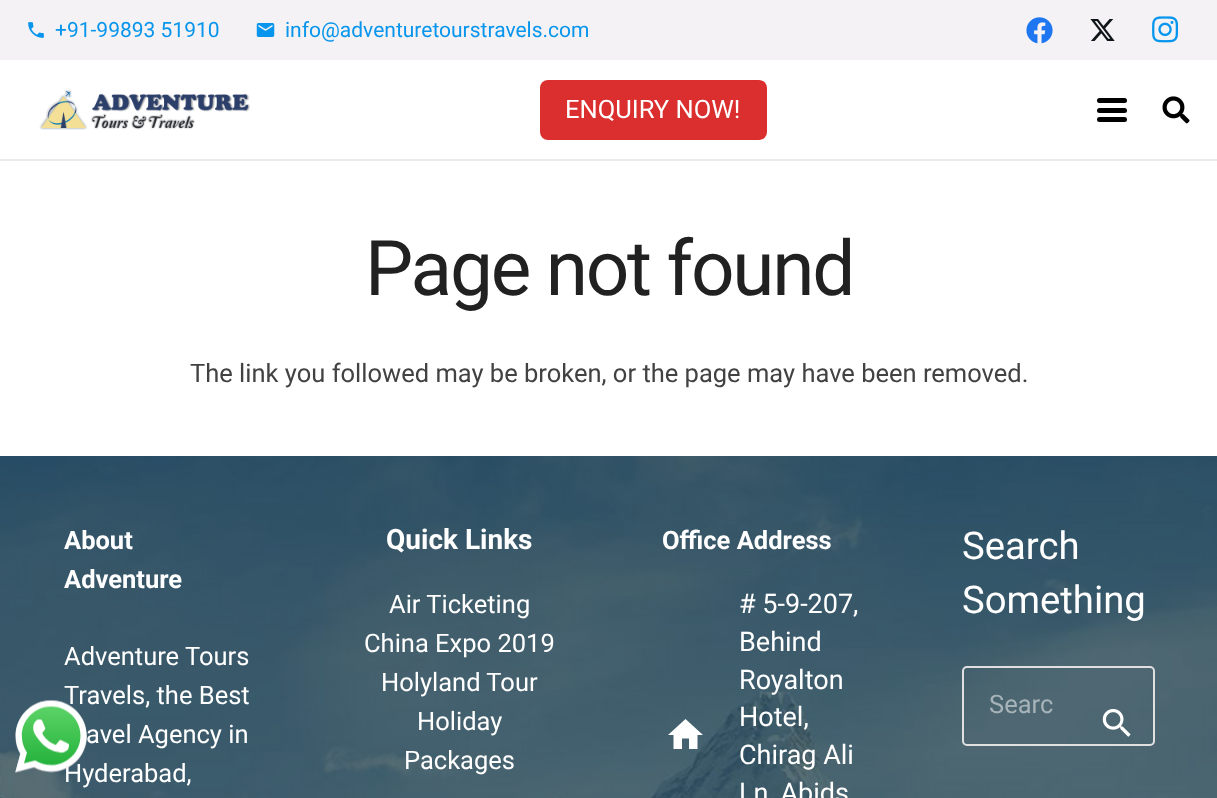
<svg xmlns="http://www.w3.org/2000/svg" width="1217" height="798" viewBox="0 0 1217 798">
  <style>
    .t1 { font: 21px Roboto; fill: #0795ed; }
    .t2 { font: 25.5px Roboto; fill: #fff; }
    .t3 { font: 76.5px Roboto; letter-spacing: -2.25px; fill: #212121; }
    .t4 { font: 25.5px Roboto; fill: #424242; }
    .t5 { font: bold 25.5px Roboto; fill: #fff; }
    .t6 { font: bold 28px Roboto; fill: #fff; }
    .t7 { font: 27px Roboto; fill: #fff; }
    .t8 { font: 38.25px Roboto; fill: #fff; }
    .t9 { font: 25.5px Roboto; fill: #a6b3b8; }
  </style>
  <rect width="100%" height="100%" fill="#fff"/>
  <rect x="0" y="0" width="1217" height="60" fill="#f4f2f4"/>
  <image x="28" y="22" width="16" height="16" href="images/1.png"/>
  <text x="55" y="37" class="t1">+91-99893 51910</text>
  <image x="256" y="23" width="19" height="14" href="images/2.png"/>
  <text x="285" y="37" class="t1">info@adventuretourstravels.com</text>
  <image x="1026" y="17" width="27" height="27" href="images/3.png"/>
  <image x="1090" y="19" width="25" height="22" href="images/4.png"/>
  <image x="1152" y="16" width="27" height="27" href="images/5.png"/>
  <rect x="0" y="159" width="1217" height="2" fill="#ebebeb"/>
  <image x="39" y="89" width="211" height="41" href="images/6.png"/>
  <rect x="540" y="80" width="227" height="60" rx="8" fill="#db2e2e"/>
  <text x="565" y="118" class="t2">ENQUIRY NOW!</text>
  <rect x="1097" y="108" width="30" height="5" rx="2.5" fill="#000"/>
  <rect x="1097" y="98" width="30" height="5" rx="2.5" fill="#000"/>
  <rect x="1097" y="117" width="30" height="5" rx="2.5" fill="#000"/>
  <image x="1162" y="96" width="28" height="28" href="images/7.png"/>
  <text x="365" y="295" class="t3">Page not found</text>
  <text x="190" y="382" class="t4">The link you followed may be broken, or the page may have been removed.</text>
  <image x="0" y="456" width="1217" height="342" href="images/9.png"/>
  <text x="64" y="704" class="t2">Travels, the Best</text>
  <text x="64" y="782" class="t2">Hyderabad,</text>
  <image x="15" y="700" width="72" height="73" href="images/8.png"/>
  <text x="64" y="549" class="t5">About</text>
  <text x="64" y="588" class="t5">Adventure</text>
  <text x="64" y="665" class="t2">Adventure Tours</text>
  <text x="86" y="743" class="t2">avel Agency in</text>
  <text x="386" y="549" class="t6">Quick Links</text>
  <text x="389" y="613" class="t2">Air Ticketing</text>
  <text x="364" y="652" class="t2">China Expo 2019</text>
  <text x="381" y="691" class="t2">Holyland Tour</text>
  <text x="417" y="730" class="t2">Holiday</text>
  <text x="404" y="769" class="t2">Packages</text>
  <text x="662" y="549" class="t5">Office Address</text>
  <path d="M682 749H673.5V735H668L685.5 719L703 735H697.5V749H689V738.5H682Z" fill="#fff"/>
  <text x="739" y="613" class="t7"># 5-9-207,</text>
  <text x="739" y="651" class="t7">Behind</text>
  <text x="739" y="689" class="t7">Royalton</text>
  <text x="739" y="726" class="t7">Hotel,</text>
  <text x="739" y="764" class="t7">Chirag Ali</text>
  <text x="739" y="802" class="t7">Ln, Abids</text>
  <text x="962" y="559" class="t8">Search</text>
  <text x="962" y="613" class="t8">Something</text>
  <rect x="963" y="667" width="191" height="78" rx="4" fill="none" stroke="#e0e0e0" stroke-width="2"/>
  <text x="989" y="713" class="t9">Searc</text>
  <image x="1102" y="709" width="29" height="28" href="images/10.png"/>
</svg>
